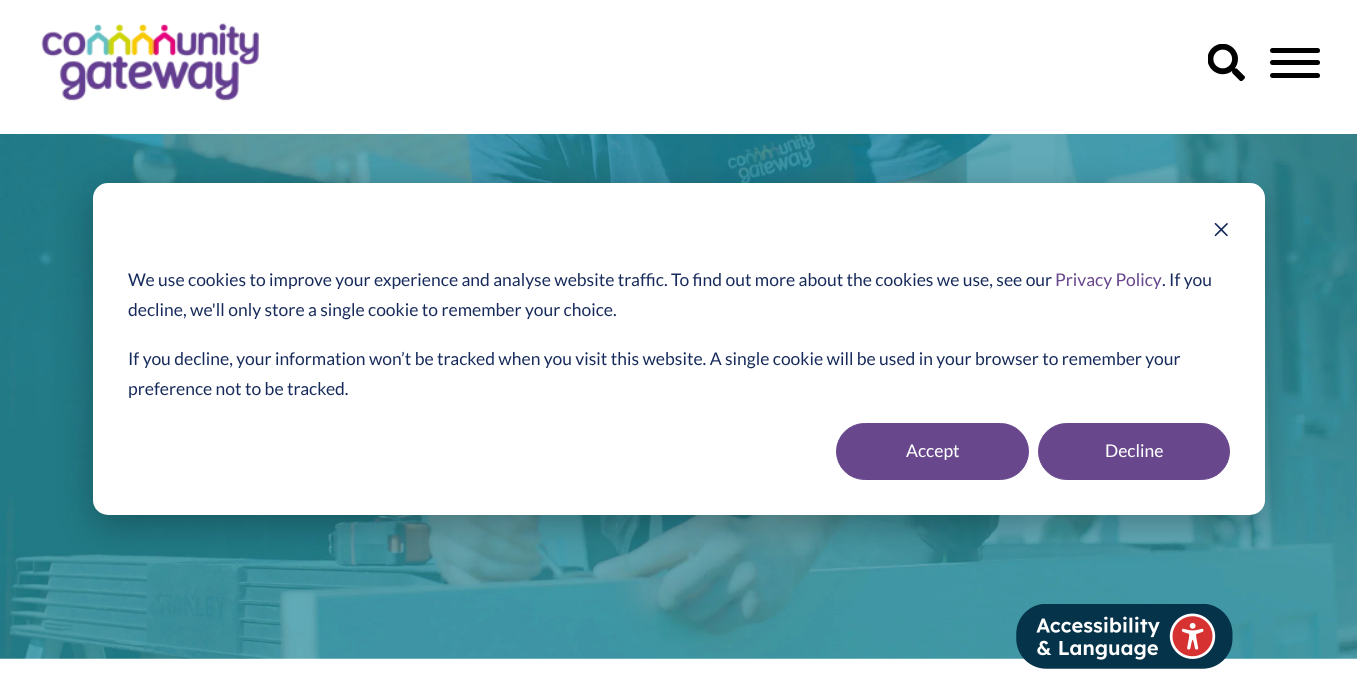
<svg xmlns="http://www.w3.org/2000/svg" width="1357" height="696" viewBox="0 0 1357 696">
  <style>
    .t1 { font: 17.5px Lato; fill: #15295a; }
    .t2 { font: 17.5px Lato; fill: #68478d; }
    .t3 { font: 17.5px Lato; fill: #fff; }
  </style>
  <rect width="100%" height="100%" fill="#fff"/>
  <image x="41" y="23" width="218" height="78" href="images/1.png"/>
  <image x="1208" y="44" width="37" height="37" href="images/2.png"/>
  <rect x="1270" y="60" width="50" height="5" rx="2.5" fill="#000"/>
  <rect x="1270" y="48" width="50" height="5" rx="2.5" fill="#000"/>
  <rect x="1270" y="73" width="50" height="5" rx="2.5" fill="#000"/>
  <image x="0" y="134" width="1357" height="525" href="images/4.png"/>
  <image x="1016" y="604" width="217" height="65" href="images/3.png"/>
  <rect x="93" y="193" width="1172" height="332" rx="15" fill="#00000047" filter="blur(17.5px)"/>
  <rect x="93" y="183" width="1172" height="332" rx="15" fill="#fff"/>
  <image x="1214" y="222" width="14" height="15" href="images/5.png"/>
  <text x="128" y="286" class="t1">We use cookies to improve your experience and analyse website traffic. To find out more about the cookies we use, see our</text>
  <text x="1055" y="286" class="t2">Privacy Policy</text>
  <text x="1162" y="286" class="t1">. If you</text>
  <text x="128" y="316" class="t1">decline, we'll only store a single cookie to remember your choice.</text>
  <text x="128" y="365" class="t1">If you decline, your information won’t be tracked when you visit this website. A single cookie will be used in your browser to remember your</text>
  <text x="128" y="395" class="t1">preference not to be tracked.</text>
  <rect x="836.5" y="423.5" width="192" height="56" rx="28" fill="#68478d" stroke="#68478d"/>
  <text x="906" y="457" class="t3">Accept</text>
  <rect x="1038.5" y="423.5" width="191" height="56" rx="28" fill="#68478d" stroke="#68478d"/>
  <text x="1105" y="457" class="t3">Decline</text>
</svg>
